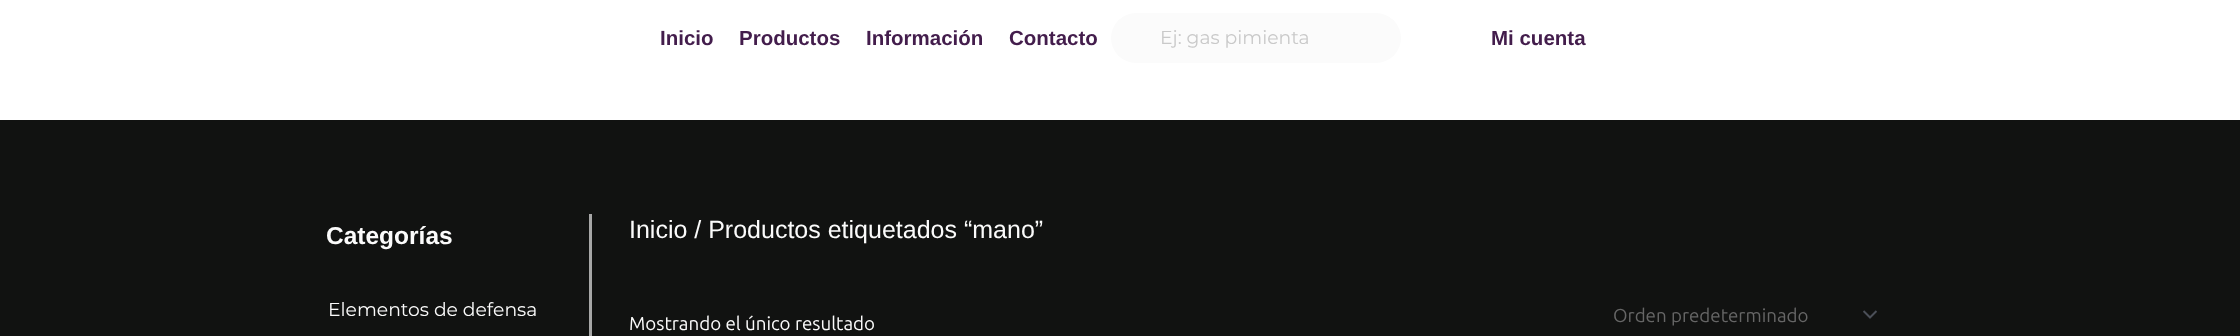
<svg xmlns="http://www.w3.org/2000/svg" width="2240" height="336" viewBox="0 0 2240 336">
  <style>
    .t1 { font: bold 20.5px Liberation Sans; fill: #431d4c; }
    .t2 { font: 100 18.75px Montserrat; fill: #c9c9c9; }
    .t3 { font: bold 24.5px Liberation Sans; fill: #fbfbfb; }
    .t4 { font: 100 18.75px Montserrat; fill: #fbfbfb; }
    .t5 { font: 25px Liberation Sans; fill: #fbfbfb; }
    .t6 { font: 18.75px Ubuntu; fill: #fbfbfb; }
    .t7 { font: 18.75px Ubuntu; fill: #666; }
  </style>
  <rect width="100%" height="100%" fill="#fff"/>
  <text x="660" y="45" class="t1">Inicio</text>
  <text x="739" y="45" class="t1">Productos</text>
  <text x="866" y="45" class="t1">Información</text>
  <text x="1009" y="45" class="t1">Contacto</text>
  <rect x="1111" y="13" width="290" height="50" rx="25" fill="#fbfbfb"/>
  <text x="1160" y="44" class="t2">Ej: gas pimienta</text>
  <text x="1491" y="45" class="t1">Mi cuenta</text>
  <rect x="0" y="120" width="2240" height="216" fill="#111211"/>
  <text x="326" y="244" class="t3">Categorías</text>
  <text x="328" y="316" class="t4">Elementos de defensa</text>
  <rect x="589" y="214" width="3" height="122" fill="#a7a7a7"/>
  <text x="629" y="238" class="t5">Inicio / Productos etiquetados “mano”</text>
  <text x="629" y="330" class="t6">Mostrando el único resultado</text>
  <image x="1863" y="310" width="14" height="9" href="images/1.png"/>
  <text x="1613" y="322" class="t7">Orden predeterminado</text>
</svg>
